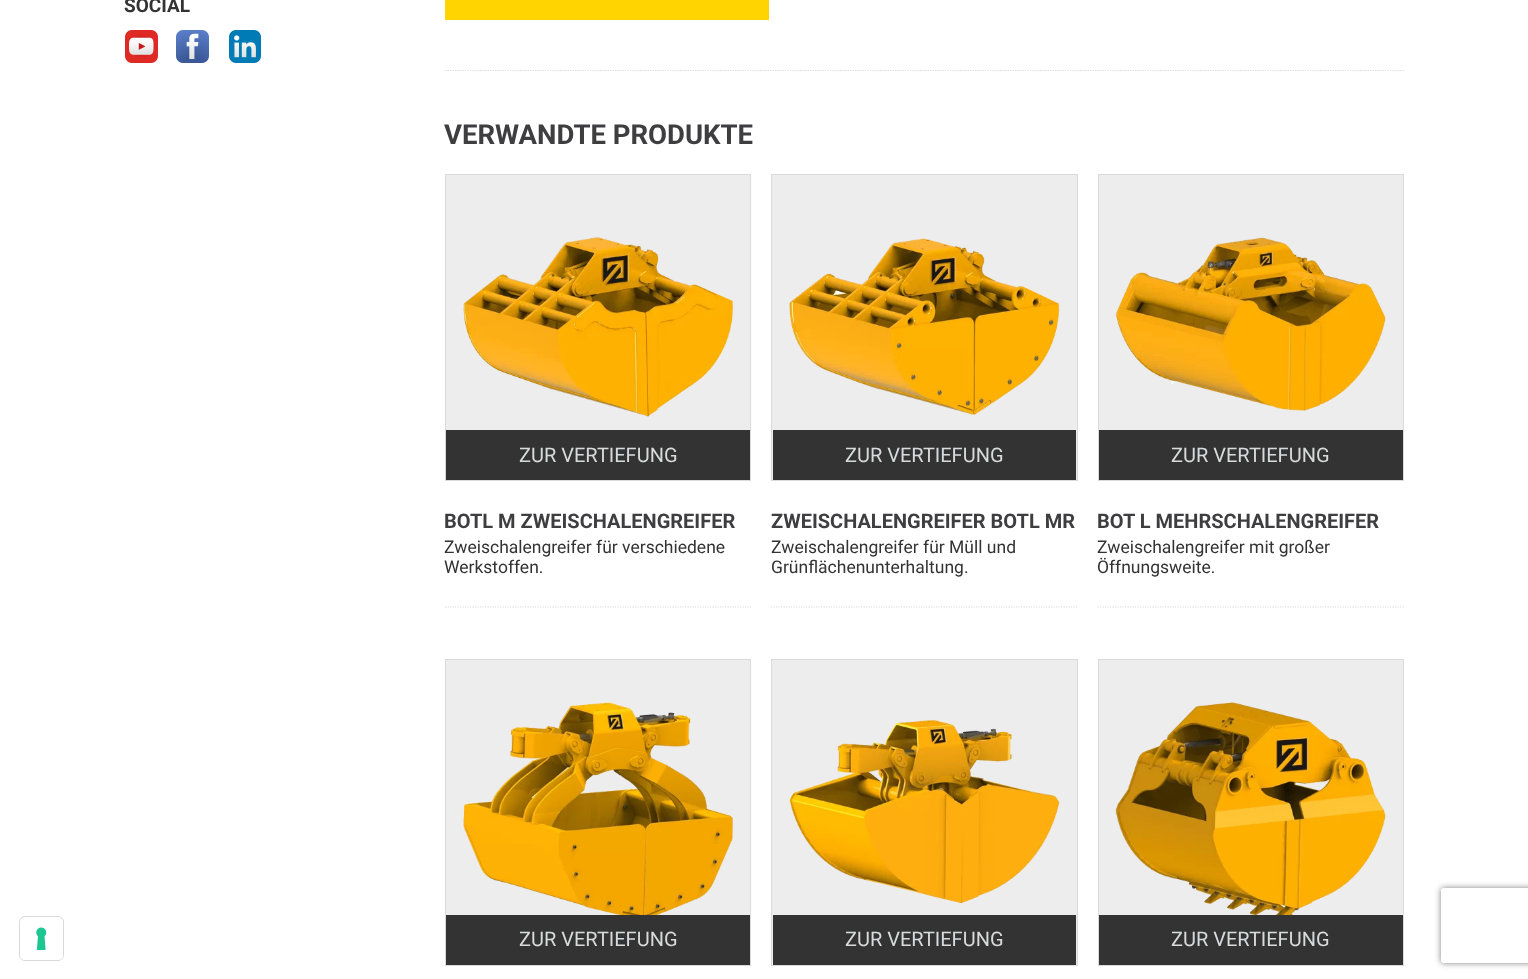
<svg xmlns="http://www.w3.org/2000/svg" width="1528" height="979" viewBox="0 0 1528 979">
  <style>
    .t1 { font: bold 19px Roboto; fill: #333; }
    .t2 { font: bold 27.5px Roboto; fill: #3e3d40; }
    .t3 { font: 20px Roboto; fill: #d9dadb; }
    .t4 { font: bold 20px Roboto; fill: #3e3d40; }
    .t5 { font: 17.5px Roboto; fill: #333; }
  </style>
  <defs>
    <clipPath id="clip1"><path d="M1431 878H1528V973H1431ZM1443.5 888H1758.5C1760 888 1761 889 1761 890.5V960.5C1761 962 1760 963 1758.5 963H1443.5C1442 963 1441 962 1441 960.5V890.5C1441 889 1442 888 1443.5 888Z" clip-rule="evenodd"/></clipPath>
  </defs>
  <rect width="100%" height="100%" fill="#fff"/>
  <rect x="19.5" y="916.5" width="44" height="44" rx="5.5" fill="none" stroke="#d9d9d9"/>
  <rect x="20" y="918" width="43" height="42" rx="5" fill="#fff"/>
  <image x="36" y="927" width="11" height="23" href="images/1.png"/>
  <text x="124" y="12" class="t1">SOCIAL</text>
  <image x="125" y="30" width="33" height="33" href="images/2.png"/>
  <image x="176" y="30" width="33" height="33" href="images/3.png"/>
  <image x="229" y="30" width="32" height="33" href="images/4.png"/>
  <rect x="445" y="0" width="324" height="20" fill="#ffd400"/>
  <path d="M445 70.5H1405" fill="none" stroke="#d9dadb" stroke-width="1.2" stroke-dasharray="1.25 1.25"/>
  <text x="444" y="144" class="t2">VERWANDTE PRODUKTE</text>
  <rect x="446" y="175" width="304" height="255" fill="#ededed"/>
  <rect x="445.5" y="174.5" width="305" height="306" fill="none" stroke="#d9dadb"/>
  <image x="463" y="237" width="270" height="180" href="images/5.png"/>
  <rect x="446" y="430" width="304" height="50" fill="#333"/>
  <text x="519" y="462" class="t3">ZUR VERTIEFUNG</text>
  <text x="444" y="528" class="t4">BOTL M ZWEISCHALENGREIFER</text>
  <text x="444" y="553" class="t5">Zweischalengreifer für verschiedene</text>
  <text x="444" y="573" class="t5">Werkstoffen.</text>
  <path d="M445 607H751" fill="none" stroke="#d9dadb" stroke-width="1.2" stroke-dasharray="1.25 1.25"/>
  <rect x="771.5" y="174.5" width="306" height="306" fill="#ededed" stroke="#d9dadb"/>
  <image x="789" y="238" width="271" height="177" href="images/6.png"/>
  <rect x="773" y="430" width="303" height="50" fill="#333"/>
  <text x="845" y="462" class="t3">ZUR VERTIEFUNG</text>
  <text x="771" y="528" class="t4">ZWEISCHALENGREIFER BOTL MR</text>
  <text x="771" y="553" class="t5">Zweischalengreifer für Müll und</text>
  <text x="771" y="573" class="t5">Grünflächenunterhaltung.</text>
  <path d="M771 607H1077.5" fill="none" stroke="#d9dadb" stroke-width="1.2" stroke-dasharray="1.25 1.25"/>
  <rect x="1099" y="175" width="304" height="255" fill="#ededed"/>
  <rect x="1098.5" y="174.5" width="305" height="306" fill="none" stroke="#d9dadb"/>
  <image x="1115" y="237" width="271" height="174" href="images/7.png"/>
  <rect x="1099" y="430" width="304" height="50" fill="#333"/>
  <text x="1171" y="462" class="t3">ZUR VERTIEFUNG</text>
  <text x="1097" y="528" class="t4">BOT L MEHRSCHALENGREIFER</text>
  <text x="1097" y="553" class="t5">Zweischalengreifer mit großer</text>
  <text x="1097" y="573" class="t5">Öffnungsweite.</text>
  <path d="M1097.5 607H1404" fill="none" stroke="#d9dadb" stroke-width="1.2" stroke-dasharray="1.25 1.25"/>
  <rect x="446" y="660" width="304" height="255" fill="#ededed"/>
  <rect x="445.5" y="659.5" width="305" height="306" fill="none" stroke="#d9dadb"/>
  <image x="463" y="702" width="270" height="213" href="images/8.png"/>
  <rect x="446" y="915" width="304" height="50" fill="#333"/>
  <text x="519" y="946" class="t3">ZUR VERTIEFUNG</text>
  <rect x="771.5" y="659.5" width="306" height="306" fill="#ededed" stroke="#d9dadb"/>
  <image x="789" y="720" width="271" height="184" href="images/9.png"/>
  <rect x="773" y="915" width="303" height="50" fill="#333"/>
  <text x="845" y="946" class="t3">ZUR VERTIEFUNG</text>
  <rect x="1099" y="660" width="304" height="255" fill="#ededed"/>
  <rect x="1098.5" y="659.5" width="305" height="306" fill="none" stroke="#d9dadb"/>
  <image x="1115" y="702" width="271" height="213" href="images/10.png"/>
  <rect x="1099" y="915" width="304" height="50" fill="#333"/>
  <text x="1171" y="946" class="t3">ZUR VERTIEFUNG</text>
  <g clip-path="url(#clip1)">
    <rect x="1441" y="888" width="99" height="75" rx="2.5" fill="#808080" filter="blur(3px)"/>
  </g>
</svg>
